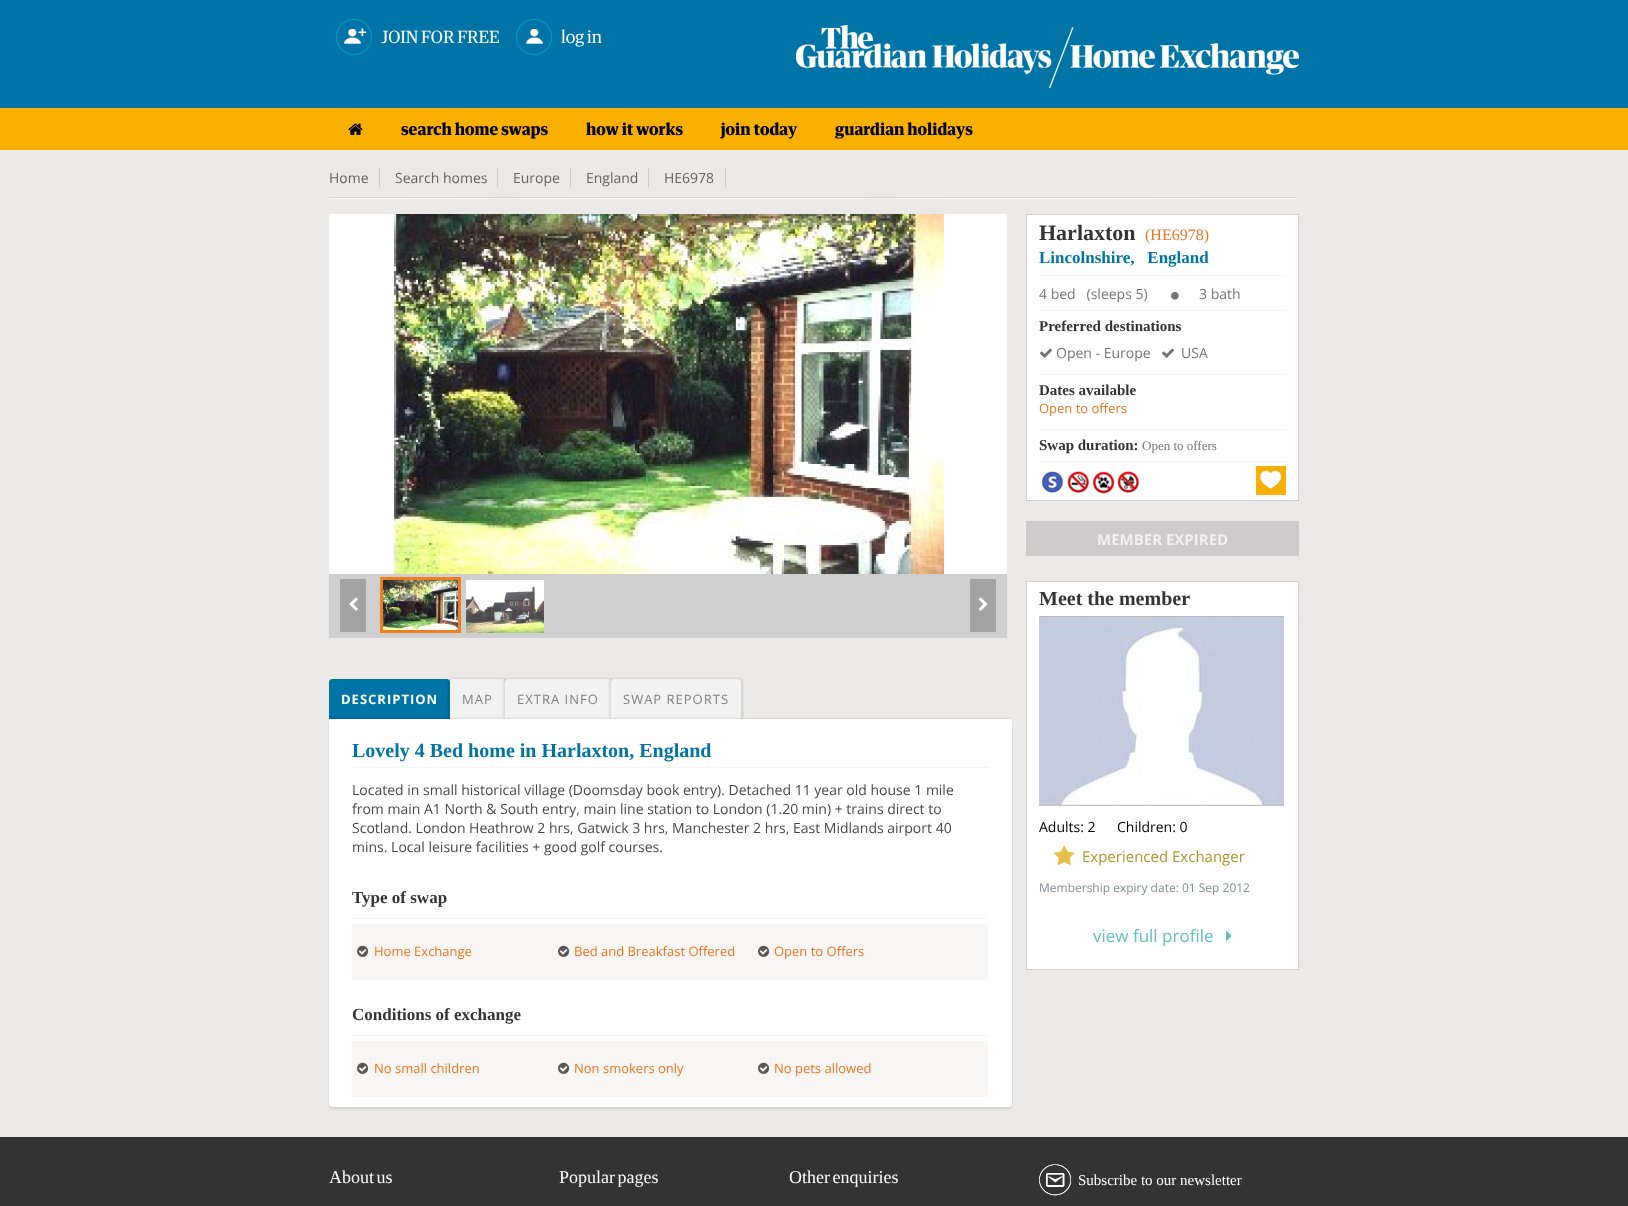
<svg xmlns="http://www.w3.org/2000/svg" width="1628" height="1206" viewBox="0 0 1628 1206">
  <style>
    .t1 { font: 17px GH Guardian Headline; fill: #fff; }
    .t2 { font: bold 16px GH Guardian Headline; fill: #000; }
    .t3 { font: 14px Open Sans; fill: #636161; }
    .t4 { font: bold 13px Open Sans; letter-spacing: 1px; fill: #fff; }
    .t5 { font: 13px Open Sans; letter-spacing: 1px; fill: #818080; }
    .t6 { font: bold 20px Liberation Serif; fill: #0074a6; }
    .t7 { font: 14px Open Sans; fill: #494848; }
    .t8 { font: bold 17px Liberation Serif; fill: #343434; }
    .t9 { font: 13px Open Sans; fill: #ee7420; }
    .t10 { font: bold 22px Liberation Serif; fill: #343434; }
    .t11 { font: 16px Liberation Serif; fill: #ee7420; }
    .t12 { font: bold 17px Liberation Serif; fill: #0074a6; }
    .t13 { font: 14px Open Sans; fill: #757575; }
    .t14 { font: bold 15px Liberation Serif; fill: #343434; }
    .t15 { font: 13px Liberation Serif; fill: #757575; }
    .t16 { font: bold 15px Open Sans; fill: #f1f1f1; }
    .t17 { font: bold 20px Liberation Serif; fill: #343434; }
    .t18 { font: 14px Open Sans; fill: #000; }
    .t19 { font: 15px Open Sans; fill: #aa982a; }
    .t20 { font: 12px Open Sans; fill: #868d90; }
    .t21 { font: 17px Open Sans; fill: #64c0ba; }
    .t22 { font: 18px Liberation Serif; fill: #fff; }
    .t23 { font: 15px Liberation Serif; fill: #fff; }
  </style>
  <rect width="100%" height="100%" fill="#ebeae8"/>
  <rect x="0" y="0" width="1628" height="108" fill="#0074a6"/>
  <image x="336" y="19" width="36" height="36" href="images/1.png"/>
  <text x="381" y="43" class="t1">JOIN FOR FREE</text>
  <image x="516" y="19" width="36" height="36" href="images/2.png"/>
  <text x="561" y="43" class="t1">log in</text>
  <image x="796" y="25" width="503" height="63" href="images/3.png"/>
  <rect x="0" y="108" width="1628" height="42" fill="#f9b000"/>
  <image x="348" y="123" width="15" height="12" href="images/4.png"/>
  <text x="401" y="135" class="t2">search home swaps</text>
  <text x="586" y="135" class="t2">how it works</text>
  <text x="721" y="135" class="t2">join today</text>
  <text x="835" y="135" class="t2">guardian holidays</text>
  <text x="329" y="183" class="t3">Home</text>
  <rect x="379" y="168" width="1" height="19" fill="#ccc"/>
  <text x="395" y="183" class="t3">Search homes</text>
  <rect x="497" y="168" width="1" height="19" fill="#ccc"/>
  <text x="513" y="183" class="t3">Europe</text>
  <rect x="570" y="168" width="1" height="19" fill="#ccc"/>
  <text x="586" y="183" class="t3">England</text>
  <rect x="648" y="168" width="1" height="19" fill="#ccc"/>
  <text x="664" y="183" class="t3">HE6978</text>
  <rect x="725" y="168" width="1" height="19" fill="#ccc"/>
  <image x="329" y="197" width="967" height="2" href="images/5.png"/>
  <rect x="329" y="214" width="678" height="360" fill="#fff"/>
  <image x="394" y="214" width="550" height="360" href="images/6.png"/>
  <rect x="329" y="574" width="678" height="64" fill="#cfcfcf"/>
  <rect x="340" y="579" width="26" height="53" fill="#a3a3a3"/>
  <image x="349" y="597" width="9" height="14" href="images/7.png"/>
  <rect x="381.5" y="578.5" width="78" height="53" fill="none" stroke="#f07d1e" stroke-width="3"/>
  <image x="383" y="580" width="75" height="50" href="images/8.png"/>
  <image x="466" y="580" width="78" height="53" href="images/9.png"/>
  <rect x="970" y="579" width="26" height="53" fill="#a3a3a3"/>
  <image x="978" y="597" width="10" height="14" href="images/10.png"/>
  <path d="M332 679H447C448.5 679 450 680.5 450 682V719H329V682C329 680.5 330.5 679 332 679Z" fill="#0074a6"/>
  <text x="341" y="704" class="t4">DESCRIPTION</text>
  <rect x="448" y="679" width="55" height="40" rx="3" fill="#0000001a" filter="blur(1px)"/>
  <rect x="452" y="679" width="55" height="40" rx="3" fill="#0000001a" filter="blur(1px)"/>
  <path d="M453 679H502C503.5 679 505 680.5 505 682V719H450V682C450 680.5 451.5 679 453 679Z" fill="#f3f2f2"/>
  <text x="462" y="704" class="t5">MAP</text>
  <rect x="503" y="679" width="106" height="40" rx="3" fill="#0000001a" filter="blur(1px)"/>
  <rect x="507" y="679" width="106" height="40" rx="3" fill="#0000001a" filter="blur(1px)"/>
  <path d="M508 679H608C609.5 679 611 680.5 611 682V719H505V682C505 680.5 506.5 679 508 679Z" fill="#f3f2f2"/>
  <text x="517" y="704" class="t5">EXTRA INFO</text>
  <rect x="609" y="679" width="130" height="40" rx="3" fill="#0000001a" filter="blur(1px)"/>
  <rect x="613" y="679" width="130" height="40" rx="3" fill="#0000001a" filter="blur(1px)"/>
  <path d="M614 679H738C739.5 679 741 680.5 741 682V719H611V682C611 680.5 612.5 679 614 679Z" fill="#f3f2f2"/>
  <text x="623" y="704" class="t5">SWAP REPORTS</text>
  <rect x="329" y="721" width="683" height="388" rx="3" fill="#0000001a" filter="blur(1px)"/>
  <rect x="331" y="719" width="679" height="384" rx="1" fill="#00000033" filter="blur(1.5px)"/>
  <path d="M329 719H1009C1010.5 719 1012 720.5 1012 722V1104C1012 1105.5 1010.5 1107 1009 1107H332C330.5 1107 329 1105.5 329 1104Z" fill="#fff"/>
  <text x="352" y="757" class="t6">Lovely 4 Bed home in Harlaxton, England</text>
  <rect x="352" y="767" width="636" height="1" fill="#f5f5f5"/>
  <text x="352" y="795" class="t7">Located in small historical village (Doomsday book entry). Detached 11 year old house 1 mile</text>
  <text x="352" y="814" class="t7">from main A1 North &amp; South entry, main line station to London (1.20 min) + trains direct to</text>
  <text x="352" y="833" class="t7">Scotland. London Heathrow 2 hrs, Gatwick 3 hrs, Manchester 2 hrs, East Midlands airport 40</text>
  <text x="352" y="852" class="t7">mins. Local leisure facilities + good golf courses.</text>
  <text x="352" y="903" class="t8">Type of swap</text>
  <rect x="352" y="918" width="636" height="1" fill="#f5f5f5"/>
  <rect x="352" y="924" width="636" height="56" fill="#f8f6f5"/>
  <image x="357" y="945" width="12" height="12" href="images/11.png"/>
  <text x="374" y="956" class="t9">Home Exchange</text>
  <image x="558" y="945" width="12" height="12" href="images/11.png"/>
  <text x="574" y="956" class="t9">Bed and Breakfast Offered</text>
  <image x="758" y="945" width="12" height="12" href="images/11.png"/>
  <text x="774" y="956" class="t9">Open to Offers</text>
  <text x="352" y="1020" class="t8">Conditions of exchange</text>
  <rect x="352" y="1035" width="636" height="1" fill="#f5f5f5"/>
  <rect x="352" y="1041" width="636" height="56" fill="#f8f6f5"/>
  <image x="357" y="1062" width="12" height="12" href="images/11.png"/>
  <text x="374" y="1073" class="t9">No small children</text>
  <image x="558" y="1062" width="12" height="12" href="images/11.png"/>
  <text x="574" y="1073" class="t9">Non smokers only</text>
  <image x="758" y="1062" width="12" height="12" href="images/11.png"/>
  <text x="774" y="1073" class="t9">No pets allowed</text>
  <rect x="1026.5" y="214.5" width="272" height="286" fill="#fff" stroke="#cfcfcf"/>
  <text x="1039" y="240" class="t10">Harlaxton</text>
  <text x="1145" y="240" class="t11">(HE6978)</text>
  <text x="1039" y="263" class="t12" xml:space="preserve">Lincolnshire,   England</text>
  <rect x="1039" y="275" width="247" height="1" fill="#f5f5f5"/>
  <text x="1039" y="299" class="t13" xml:space="preserve">4 bed   (sleeps 5)</text>
  <image x="1171" y="292" width="8" height="8" href="images/12.png"/>
  <text x="1199" y="299" class="t13">3 bath</text>
  <rect x="1039" y="310" width="247" height="1" fill="#f5f5f5"/>
  <text x="1039" y="331" class="t14">Preferred destinations</text>
  <image x="1040" y="348" width="12" height="10" href="images/13.png"/>
  <text x="1056" y="358" class="t13">Open - Europe</text>
  <image x="1162" y="348" width="12" height="10" href="images/13.png"/>
  <text x="1181" y="358" class="t13">USA</text>
  <rect x="1039" y="374" width="247" height="1" fill="#f5f5f5"/>
  <text x="1039" y="395" class="t14">Dates available</text>
  <text x="1039" y="413" class="t9">Open to offers</text>
  <rect x="1039" y="429" width="247" height="1" fill="#f5f5f5"/>
  <text x="1039" y="450" class="t14">Swap duration:</text>
  <text x="1142" y="450" class="t15">Open to offers</text>
  <rect x="1039" y="461" width="247" height="1" fill="#f5f5f5"/>
  <image x="1041" y="471" width="23" height="23" href="images/14.png"/>
  <image x="1067" y="471" width="23" height="23" href="images/15.png"/>
  <image x="1092" y="471" width="23" height="23" href="images/16.png"/>
  <image x="1117" y="471" width="23" height="23" href="images/17.png"/>
  <image x="1256" y="466" width="30" height="29" href="images/18.png"/>
  <rect x="1026" y="521" width="273" height="35" fill="#cccaca"/>
  <text x="1097" y="545" class="t16">MEMBER EXPIRED</text>
  <rect x="1026.5" y="581.5" width="272" height="388" fill="#fff" stroke="#cfcfcf"/>
  <text x="1039" y="605" class="t17">Meet the member</text>
  <image x="1039" y="615" width="245" height="192" href="images/19.png"/>
  <text x="1039" y="832" class="t18">Adults: 2</text>
  <text x="1117" y="832" class="t18">Children: 0</text>
  <image x="1054" y="845" width="21" height="20" href="images/20.png"/>
  <text x="1082" y="862" class="t19">Experienced Exchanger</text>
  <text x="1039" y="892" class="t20">Membership expiry date: 01 Sep 2012</text>
  <text x="1093" y="942" class="t21">view full profile</text>
  <image x="1226" y="931" width="6" height="10" href="images/21.png"/>
  <rect x="0" y="1137" width="1628" height="69" fill="#333"/>
  <text x="329" y="1183" word-spacing="-2" class="t22">About us</text>
  <text x="559" y="1183" word-spacing="-2" class="t22">Popular pages</text>
  <text x="789" y="1183" word-spacing="-2" class="t22">Other enquiries</text>
  <image x="1039" y="1164" width="32" height="32" href="images/22.png"/>
  <text x="1078" y="1185" class="t23">Subscribe to our newsletter</text>
</svg>
